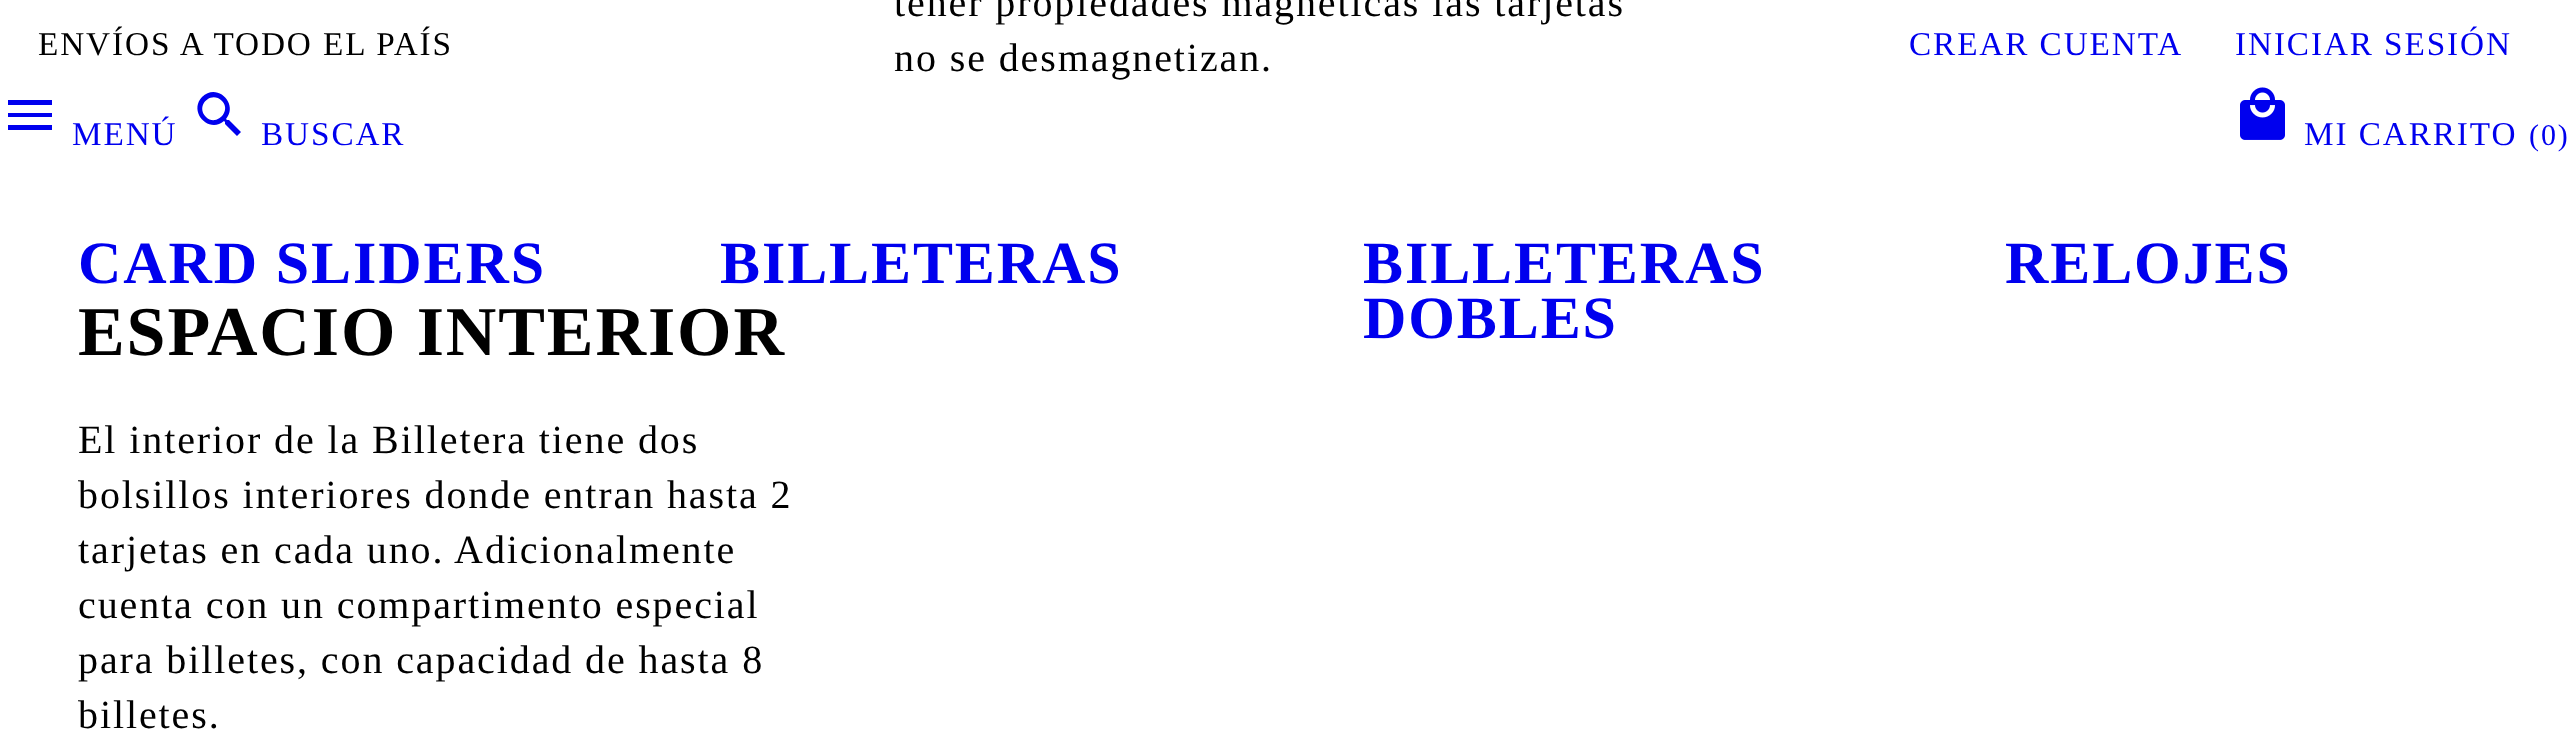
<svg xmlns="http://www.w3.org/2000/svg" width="2570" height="732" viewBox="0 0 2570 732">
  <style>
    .t1 { font: 40px Liberation Serif; letter-spacing: 1.9px; fill: #000; }
    .t2 { font: bold 70px Liberation Serif; letter-spacing: 1.9px; fill: #000; }
    .t3 { font: 33.25px Liberation Serif; letter-spacing: 1.9px; fill: #000; }
    .t4 { font: 33.25px Liberation Serif; letter-spacing: 1.9px; fill: #00e; }
    .t5 { font: 30px Liberation Serif; letter-spacing: 1.9px; fill: #00e; }
    .t6 { font: bold 60px Liberation Serif; letter-spacing: 1.9px; fill: #00e; }
  </style>
  <rect width="100%" height="100%" fill="#fff"/>
  <text x="894" y="16" class="t1">tener propiedades magnéticas las tarjetas</text>
  <text x="894" y="71" class="t1">no se desmagnetizan.</text>
  <text x="78" y="355" class="t2">ESPACIO INTERIOR</text>
  <text x="78" y="453" class="t1">El interior de la Billetera tiene dos</text>
  <text x="78" y="508" class="t1">bolsillos interiores donde entran hasta 2</text>
  <text x="78" y="563" class="t1">tarjetas en cada uno. Adicionalmente</text>
  <text x="78" y="618" class="t1">cuenta con un compartimento especial</text>
  <text x="78" y="673" class="t1">para billetes, con capacidad de hasta 8</text>
  <text x="78" y="728" class="t1">billetes.</text>
  <text x="38" y="55" class="t3">ENVÍOS A TODO EL PAÍS</text>
  <text x="1909" y="55" class="t4">CREAR CUENTA</text>
  <text x="2235" y="55" class="t4">INICIAR SESIÓN</text>
  <path d="M8 100H52V105H8ZM8 117V113H52V117ZM8 130V125H52V130Z" fill="#00e"/>
  <text x="72" y="145" class="t4">MENÚ</text>
  <path d="M206 117C216 127 232 111 222 101C211 90 195 106 206 117ZM229 120L241 132L237 136L225 124V122L224 121C209 134 188 112 202 97C217 82 239 104 226 119L227 120Z" fill="#00e"/>
  <text x="261" y="145" class="t4">BUSCAR</text>
  <image x="2240" y="87" width="45" height="53" href="images/1.png"/>
  <text x="2304" y="145" class="t4">MI CARRITO</text>
  <text x="2529" y="145" class="t5">(0)</text>
  <text x="78" y="283" class="t6">CARD SLIDERS</text>
  <text x="720" y="283" class="t6">BILLETERAS</text>
  <text x="1363" y="283" class="t6">BILLETERAS</text>
  <text x="1363" y="338" class="t6">DOBLES</text>
  <text x="2005" y="283" class="t6">RELOJES</text>
</svg>
